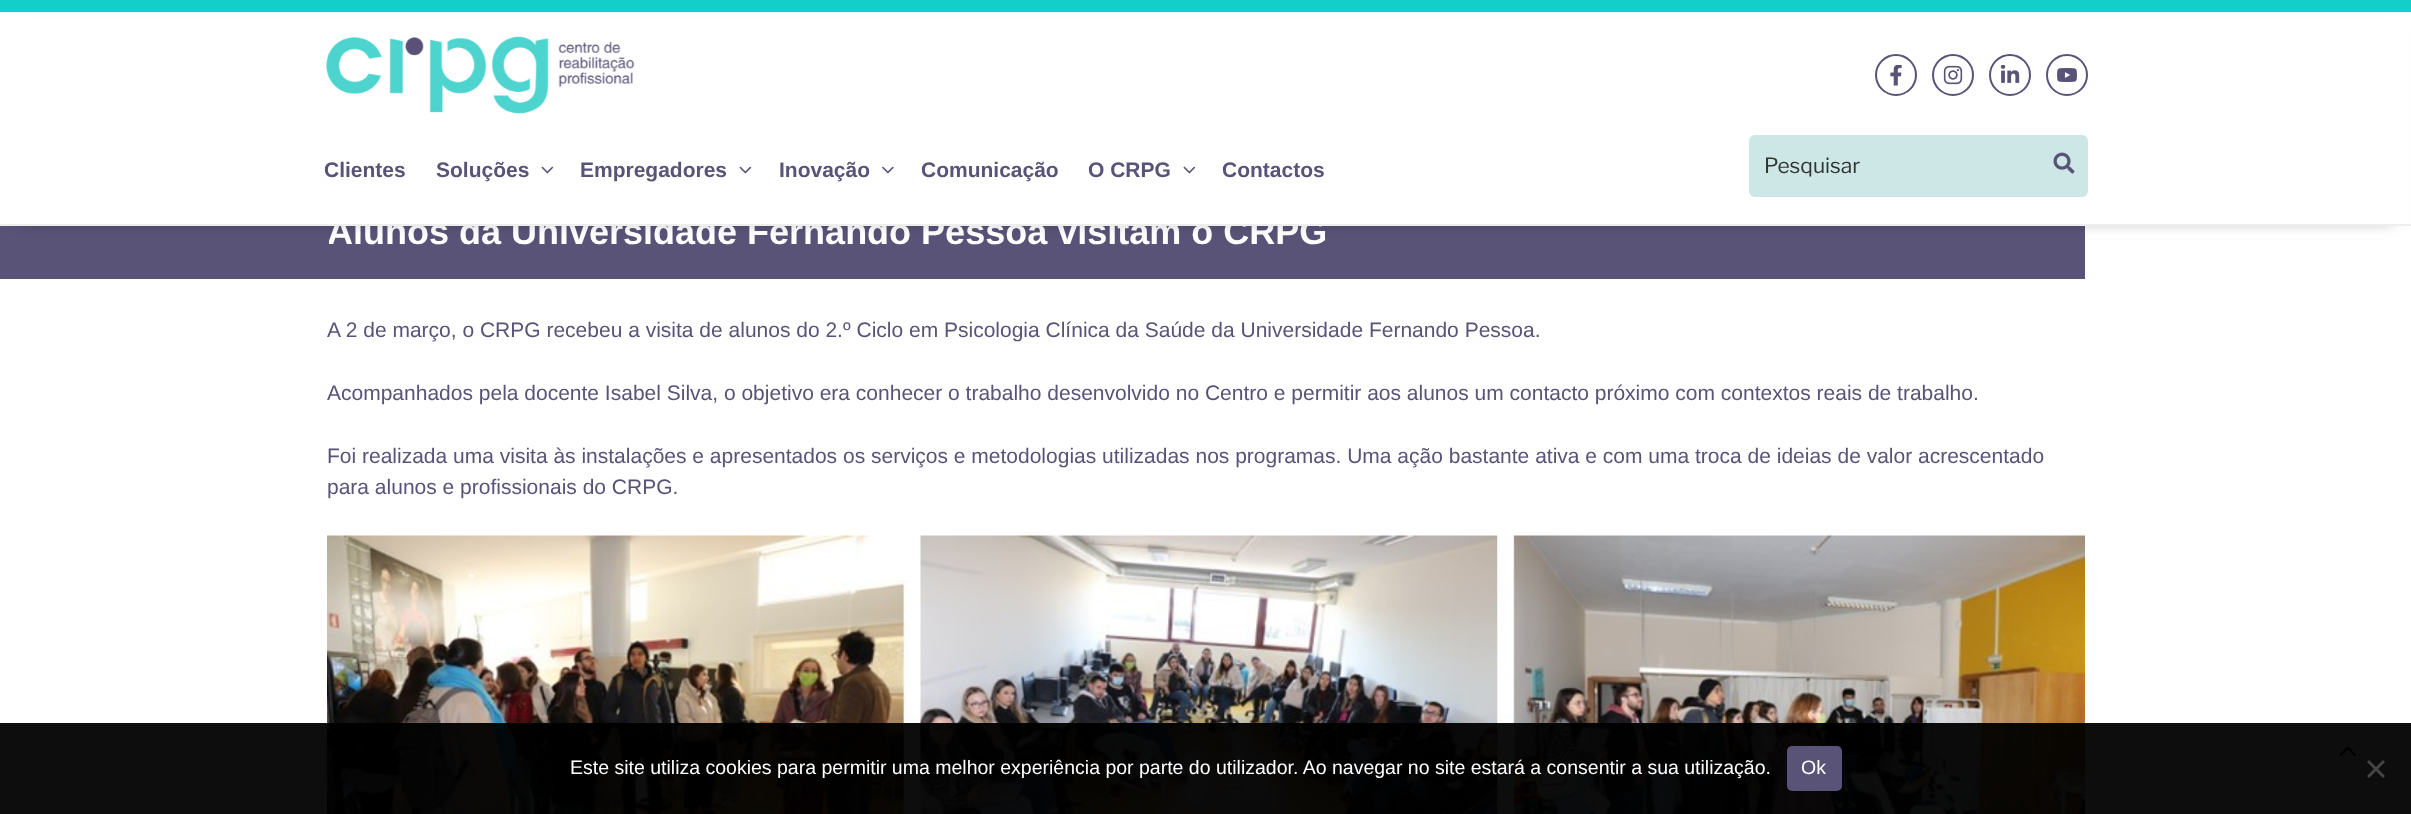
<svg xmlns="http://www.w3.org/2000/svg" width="2411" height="814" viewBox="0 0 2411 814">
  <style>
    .t1 { font: bold 36px Liberation Sans; fill: #fff; }
    .t2 { font: bold 21px Liberation Sans; fill: #595378; }
    .t3 { font: 100 21px Libre Franklin; fill: #333; }
    .t4 { font: 21px Liberation Sans; fill: #595378; }
    .t5 { font: 19.5px Liberation Sans; fill: #fff; }
  </style>
  <rect width="100%" height="100%" fill="#fff"/>
  <rect x="329" y="226" width="1756" height="53" fill="#595378"/>
  <text x="327" y="244" class="t1">Alunos da Universidade Fernando Pessoa visitam o CRPG</text>
  <rect x="0" y="226" width="329" height="53" fill="#595378"/>
  <rect x="18" y="33" width="2376" height="189" fill="#0000004d" filter="blur(7.5px)"/>
  <rect x="4" y="19" width="2404" height="205" fill="#fff"/>
  <rect x="0" y="0" width="2411" height="12" fill="#12cfc9"/>
  <rect x="0" y="224" width="2411" height="2" fill="#eee"/>
  <image x="326" y="36" width="309" height="78" href="images/1.png"/>
  <circle cx="1896" cy="75" r="20" fill="none" stroke="#595378" stroke-width="2"/>
  <image x="1890" y="65" width="12" height="21" href="images/2.png"/>
  <circle cx="1953" cy="75" r="20" fill="none" stroke="#595378" stroke-width="2"/>
  <image x="1943" y="65" width="20" height="20" href="images/3.png"/>
  <circle cx="2010" cy="75" r="20" fill="none" stroke="#595378" stroke-width="2"/>
  <image x="2000" y="65" width="20" height="18" href="images/4.png"/>
  <circle cx="2067" cy="75" r="20" fill="none" stroke="#595378" stroke-width="2"/>
  <image x="2057" y="68" width="20" height="14" href="images/5.png"/>
  <text x="324" y="177" class="t2">Clientes</text>
  <text x="436" y="177" class="t2">Soluções</text>
  <image x="541" y="166" width="13" height="8" href="images/6.png"/>
  <text x="580" y="177" class="t2">Empregadores</text>
  <image x="739" y="166" width="13" height="8" href="images/6.png"/>
  <text x="779" y="177" class="t2">Inovação</text>
  <image x="882" y="166" width="12" height="8" href="images/7.png"/>
  <text x="921" y="177" class="t2">Comunicação</text>
  <text x="1088" y="177" class="t2">O CRPG</text>
  <image x="1183" y="166" width="13" height="8" href="images/6.png"/>
  <text x="1222" y="177" class="t2">Contactos</text>
  <rect x="1749" y="135" width="339" height="62" rx="6" fill="#cde7e6"/>
  <text x="1764" y="173" class="t3">Pesquisar</text>
  <image x="2053" y="152" width="22" height="22" href="images/8.png"/>
  <text x="327" y="337" class="t4">A 2 de março, o CRPG recebeu a visita de alunos do 2.º Ciclo em Psicologia Clínica da Saúde da Universidade Fernando Pessoa.</text>
  <text x="327" y="400" class="t4">Acompanhados pela docente Isabel Silva, o objetivo era conhecer o trabalho desenvolvido no Centro e permitir aos alunos um contacto próximo com contextos reais de trabalho.</text>
  <text x="327" y="463" class="t4">Foi realizada uma visita às instalações e apresentados os serviços e metodologias utilizadas nos programas. Uma ação bastante ativa e com uma troca de ideias de valor acrescentado</text>
  <text x="327" y="494" class="t4">para alunos e profissionais do CRPG.</text>
  <image x="327" y="535" width="1758" height="279" href="images/9.png"/>
  <image x="2339" y="746" width="17" height="10" href="images/10.png"/>
  <rect x="0" y="723" width="2411" height="91" fill="#000000f2"/>
  <text x="570" y="774" class="t5">Este site utiliza cookies para permitir uma melhor experiência por parte do utilizador. Ao navegar no site estará a consentir a sua utilização.</text>
  <rect x="1787" y="746" width="55" height="45" rx="5" fill="#595378"/>
  <text x="1801" y="774" class="t5">Ok</text>
  <path d="M2383 760L2385 762L2369 778L2367 776Z" fill="#464646"/>
  <path d="M2367 762L2369 760L2385 776L2383 778Z" fill="#464646"/>
</svg>
